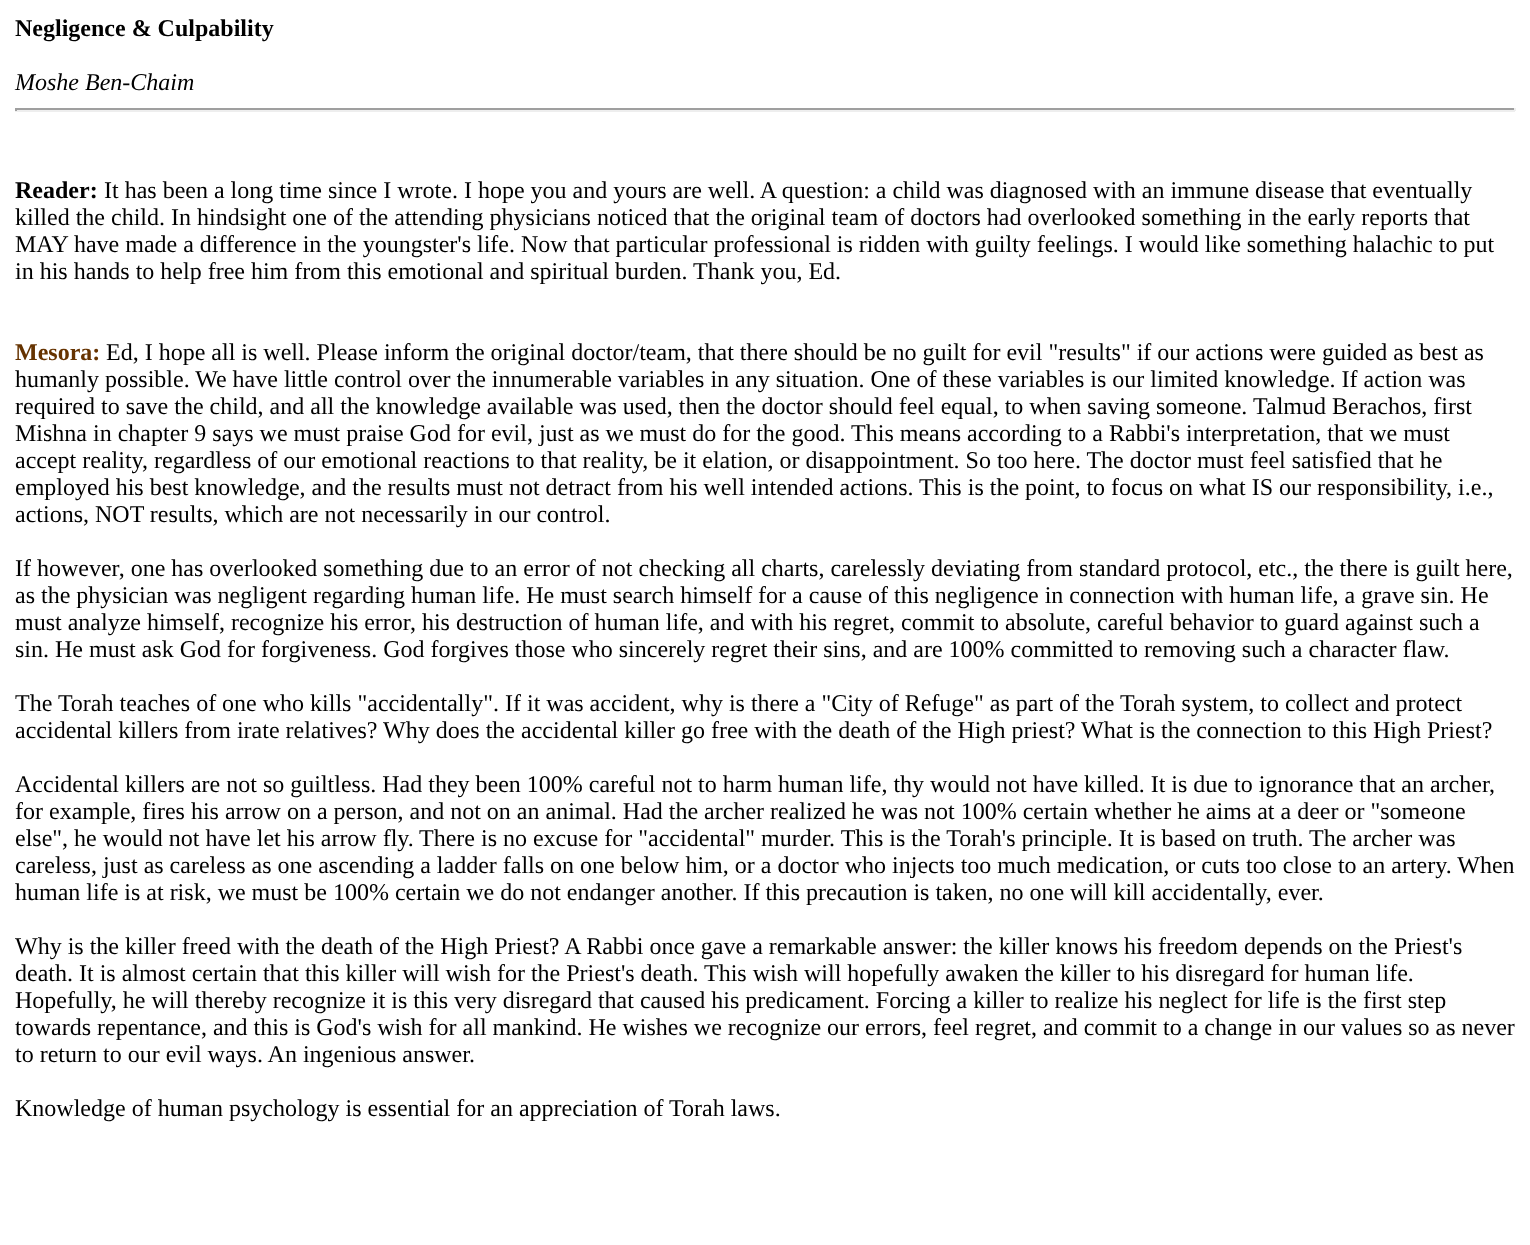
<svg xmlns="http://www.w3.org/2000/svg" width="1530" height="1245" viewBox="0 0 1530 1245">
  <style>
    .t1 { font: bold 24px Liberation Serif; fill: #000; }
    .t2 { font: italic 24px Liberation Serif; fill: #000; }
    .t3 { font: 24px Liberation Serif; fill: #000; }
    .t4 { font: bold 24px Liberation Serif; fill: #630; }
  </style>
  <rect width="100%" height="100%" fill="#fff"/>
  <text x="15" y="36" class="t1">Negligence &amp; Culpability</text>
  <text x="15" y="90" class="t2">Moshe Ben-Chaim</text>
  <rect x="15" y="108" width="1500" height="2" fill="#9f9f9f"/>
  <rect x="1514" y="108" width="2" height="3" fill="#eee"/>
  <rect x="15" y="110" width="1500" height="2" fill="#eee"/>
  <rect x="15" y="108" width="2" height="3" fill="#9f9f9f"/>
  <text x="15" y="198" class="t1">Reader:</text>
  <text x="104" y="198" class="t3">It has been a long time since I wrote. I hope you and yours are well. A question: a child was diagnosed with an immune disease that eventually</text>
  <text x="15" y="225" class="t3">killed the child. In hindsight one of the attending physicians noticed that the original team of doctors had overlooked something in the early reports that</text>
  <text x="15" y="252" class="t3">MAY have made a difference in the youngster's life. Now that particular professional is ridden with guilty feelings. I would like something halachic to put</text>
  <text x="15" y="279" class="t3">in his hands to help free him from this emotional and spiritual burden. Thank you, Ed.</text>
  <text x="15" y="360" class="t4">Mesora:</text>
  <text x="106" y="360" class="t3">Ed, I hope all is well. Please inform the original doctor/team, that there should be no guilt for evil "results" if our actions were guided as best as</text>
  <text x="15" y="387" class="t3">humanly possible. We have little control over the innumerable variables in any situation. One of these variables is our limited knowledge. If action was</text>
  <text x="15" y="414" class="t3">required to save the child, and all the knowledge available was used, then the doctor should feel equal, to when saving someone.</text>
  <text x="1253" y="414" class="t3">Talmud Berachos, first</text>
  <text x="15" y="441" class="t3">Mishna in chapter 9 says we must praise God for evil, just as we must do for the good. This means according to a Rabbi's interpretation, that we must</text>
  <text x="15" y="468" class="t3">accept reality, regardless of our emotional reactions to that reality, be it elation, or disappointment. So too here. The doctor must feel satisfied that he</text>
  <text x="15" y="495" class="t3">employed his best knowledge, and the results must not detract from his well intended actions. This is the point, to focus on what IS our responsibility, i.e.,</text>
  <text x="15" y="522" class="t3">actions, NOT results, which are not necessarily in our control.</text>
  <text x="15" y="576" class="t3">If however, one has overlooked something due to an error of not checking all charts, carelessly deviating from standard protocol, etc., the there is guilt here,</text>
  <text x="15" y="603" class="t3">as the physician was negligent regarding human life. He must search himself for a cause of this negligence in connection with human life, a grave sin. He</text>
  <text x="15" y="630" class="t3">must analyze himself, recognize his error, his destruction of human life, and with his regret, commit to absolute, careful behavior to guard against such a</text>
  <text x="15" y="657" class="t3">sin. He must ask God for forgiveness. God forgives those who sincerely regret their sins, and are 100% committed to removing such a character flaw.</text>
  <text x="15" y="711" class="t3">The Torah teaches of one who kills "accidentally". If it was accident, why is there a "City of Refuge" as part of the Torah system, to collect and protect</text>
  <text x="15" y="738" class="t3">accidental killers from irate relatives? Why does the accidental killer go free with the death of the High priest? What is the connection to this High Priest?</text>
  <text x="15" y="792" class="t3">Accidental killers are not so guiltless. Had they been 100% careful not to harm human life, thy would not have killed. It is due to ignorance that an archer,</text>
  <text x="15" y="819" class="t3">for example, fires his arrow on a person, and not on an animal. Had the archer realized he was not 100% certain whether he aims at a deer or "someone</text>
  <text x="15" y="846" class="t3">else", he would not have let his arrow fly.</text>
  <text x="419" y="846" class="t3">There is no excuse for "accidental" murder. This is the Torah's principle. It is based on truth. The archer was</text>
  <text x="15" y="873" class="t3">careless, just as careless as one ascending a ladder falls on one below him, or a doctor who injects too much medication, or cuts too close to an artery. When</text>
  <text x="15" y="900" class="t3">human life is at risk, we must be 100% certain we do not endanger another. If this precaution is taken, no one will kill accidentally, ever.</text>
  <text x="15" y="954" class="t3">Why is the killer freed with the death of the High Priest? A Rabbi once gave a remarkable answer: the killer knows his freedom depends on the Priest's</text>
  <text x="15" y="981" class="t3">death. It is almost certain that this killer will wish for the Priest's death.</text>
  <text x="704" y="981" class="t3">This wish will hopefully awaken the killer to his disregard for human life.</text>
  <text x="15" y="1008" class="t3">Hopefully, he will thereby recognize it is this very disregard that caused his predicament. Forcing a killer to realize his neglect for life is the first step</text>
  <text x="15" y="1035" class="t3">towards repentance, and this is God's wish for all mankind. He wishes we recognize our errors, feel regret, and commit to a change in our values so as never</text>
  <text x="15" y="1062" class="t3">to return to our evil ways. An ingenious answer.</text>
  <text x="15" y="1116" class="t3">Knowledge of human psychology is essential for an appreciation of Torah laws.</text>
</svg>
